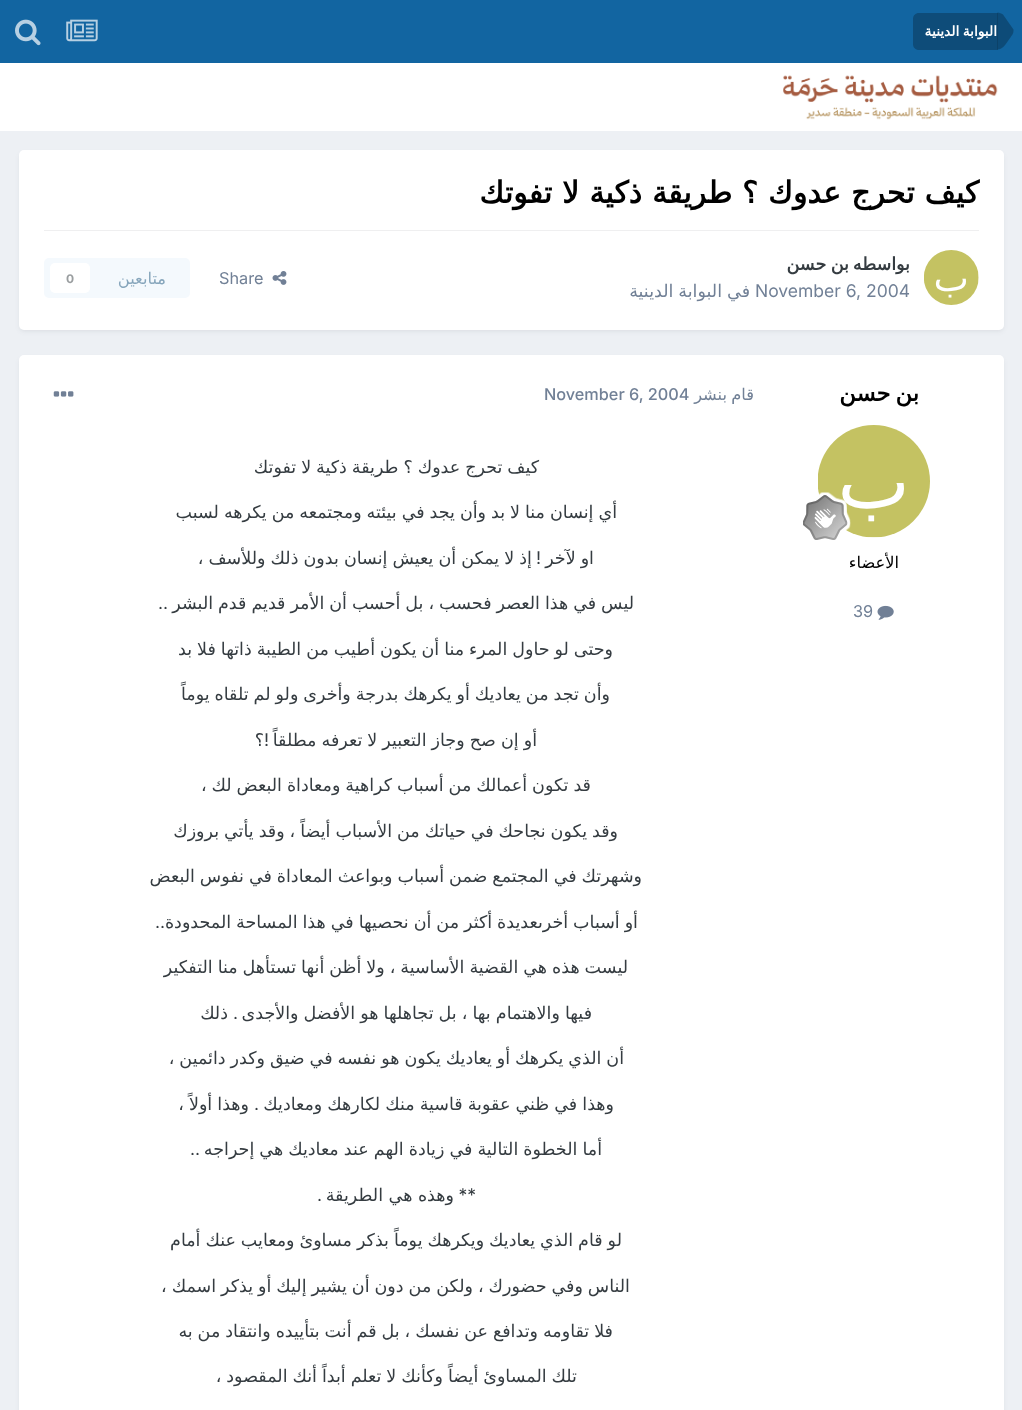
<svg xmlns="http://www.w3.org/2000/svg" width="1022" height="1410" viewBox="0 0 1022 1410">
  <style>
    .t1 { font: bold 13.75px DejaVu Sans; direction: rtl; fill: #fff; }
    .t2 { font: bold 30px DejaVu Sans; letter-spacing: -0.6px; direction: rtl; fill: #000; }
    .t3 { font: bold 17.5px DejaVu Sans; direction: rtl; fill: #353c41; }
    .t4 { font: 17.5px Inter; fill: #718096; }
    .t5 { font: 17.5px DejaVu Sans; direction: rtl; fill: #718096; }
    .t6 { font: 16.25px Inter; fill: #718096; }
    .t7 { font: 16.25px DejaVu Sans; direction: rtl; fill: #87a6bc; }
    .t8 { font: bold 12px Inter; fill: #9a9ea0; }
    .t9 { font: bold 22.5px DejaVu Sans; direction: rtl; fill: #000; }
    .t10 { font: 16.25px DejaVu Sans; direction: rtl; fill: #000; }
    .t11 { font: 16.25px DejaVu Sans; direction: rtl; fill: #718096; }
    .t12 { font: 500 16.25px Inter; fill: #718096; }
    .t13 { font: 17.5px DejaVu Sans; direction: rtl; fill: #353c41; }
    .t14 { font: 17.5px Inter; direction: rtl; fill: #353c41; }
  </style>
  <rect width="100%" height="100%" fill="#edf0f4"/>
  <rect x="0" y="0" width="1022" height="63" fill="#1265a1"/>
  <path d="M919 13H998V50H919C915.5 50 913 47.5 913 44V19C913 15.5 915.5 13 919 13Z" fill="#0e4c79"/>
  <path d="M1013.5 31H997.5V12.5C999.5 12.5 1001.5 13.5 1003 14.5L1013.5 29.5ZM1010.5 37.5C1007 42 1003.5 49.5 997.5 49.5V31H1013.5C1013.5 34 1011.5 35.5 1010.5 37.5Z" fill="#00000040"/>
  <text x="997" y="36" word-spacing="-1" class="t1">البوابة الدينية</text>
  <image x="66" y="19" width="32" height="23" href="images/1.png"/>
  <image x="15" y="19" width="26" height="27" href="images/2.png"/>
  <rect x="0" y="63" width="1022" height="68" fill="#fff"/>
  <image x="783" y="75" width="215" height="45" href="images/3.png"/>
  <rect x="20" y="154" width="983" height="177" rx="4" fill="#2d37481a" filter="blur(2.5px)"/>
  <rect x="19" y="150" width="985" height="180" rx="5" fill="#fff"/>
  <text x="979" y="203" word-spacing="0.5" class="t2">كيف تحرج عدوك ؟ طريقة ذكية لا تفوتك</text>
  <rect x="44" y="230" width="935" height="1" fill="#efeff0"/>
  <image x="924" y="250" width="55" height="55" href="images/4.png"/>
  <text x="910" y="270" class="t3">بواسطه</text>
  <text x="849" y="270" word-spacing="-1" class="t3">بن حسن</text>
  <text x="755" y="297" class="t4">November 6, 2004</text>
  <text x="750" y="297" class="t5">في</text>
  <text x="722" y="297" word-spacing="-0.6" class="t5">البوابة الدينية</text>
  <image x="272" y="271" width="15" height="14" href="images/5.png"/>
  <text x="219" y="284" class="t6">Share</text>
  <rect x="44" y="258" width="146" height="40" rx="5" fill="#f4f9fd"/>
  <text x="166" y="284" class="t7">متابعين</text>
  <rect x="50" y="263" width="40" height="30" rx="5" fill="#fff"/>
  <text x="66" y="283" class="t8">0</text>
  <rect x="20" y="359" width="983" height="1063" rx="4" fill="#2d37481a" filter="blur(2.5px)"/>
  <rect x="19" y="355" width="985" height="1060" rx="5" fill="#fff"/>
  <text x="919" y="401" word-spacing="-2" class="t9">بن حسن</text>
  <image x="818" y="425" width="112" height="113" href="images/6.png"/>
  <image x="803" y="492" width="48" height="48" href="images/7.png"/>
  <text x="899" y="568" class="t10">الأعضاء</text>
  <image x="877" y="605" width="17" height="15" href="images/8.png"/>
  <text x="853" y="617" class="t6">39</text>
  <text x="754" y="400" word-spacing="-1" class="t11">قام بنشر</text>
  <text x="544" y="400" class="t12">November 6, 2004</text>
  <image x="53" y="391" width="21" height="6" href="images/9.png"/>
  <text x="539" y="473" word-spacing="-0.6" class="t13">كيف تحرج عدوك ؟ طريقة ذكية لا تفوتك</text>
  <text x="617" y="518" word-spacing="-0.6" class="t13">أي إنسان منا لا بد وأن يجد في بيئته ومجتمعه من يكرهه لسبب</text>
  <text x="594" y="564" word-spacing="-0.5" class="t13">او لآخر</text>
  <text x="541" y="564" class="t14">!</text>
  <text x="532" y="564" word-spacing="-0.5" class="t13">إذ لا يمكن أن يعيش إنسان بدون ذلك وللأسف ،</text>
  <text x="634" y="609" word-spacing="-0.6" class="t13">ليس في هذا العصر فحسب ، بل أحسب أن الأمر قديم قدم البشر</text>
  <text x="168" y="609" class="t14">..</text>
  <text x="613" y="655" word-spacing="-0.6" class="t13">وحتى لو حاول المرء منا أن يكون أطيب من الطيبة ذاتها فلا بد</text>
  <text x="610" y="700" word-spacing="-0.6" class="t13">وأن تجد من يعاديك أو يكرهك بدرجة وأخرى ولو لم تلقاه يوماً</text>
  <text x="537" y="746" word-spacing="-0.5" class="t13">أو إن صح وجاز التعبير لا تعرفه مطلقاً</text>
  <text x="269" y="746" class="t14">!</text>
  <text x="264" y="746" class="t13">؟</text>
  <text x="591" y="791" word-spacing="-0.6" class="t13">قد تكون أعمالك من أسباب كراهية ومعاداة البعض لك ،</text>
  <text x="618" y="837" word-spacing="-0.6" class="t13">وقد يكون نجاحك في حياتك من الأسباب أيضاً ، وقد يأتي بروزك</text>
  <text x="642" y="882" word-spacing="-0.6" class="t13">وشهرتك في المجتمع ضمن أسباب وبواعث المعاداة في نفوس البعض</text>
  <text x="638" y="928" word-spacing="-0.6" class="t13">أو أسباب أخرىعديدة أكثر من أن نحصيها في هذا المساحة المحدودة</text>
  <text x="165" y="928" class="t14">..</text>
  <text x="628" y="973" word-spacing="-0.6" class="t13">ليست هذه هي القضية الأساسية ، ولا أظن أنها تستأهل منا التفكير</text>
  <text x="592" y="1019" word-spacing="-0.5" class="t13">فيها والاهتمام بها ، بل تجاهلها هو الأفضل والأجدى</text>
  <text x="238" y="1019" class="t14">.</text>
  <text x="228" y="1019" class="t13">ذلك</text>
  <text x="624" y="1064" word-spacing="-0.6" class="t13">أن الذي يكرهك أو يعاديك يكون هو نفسه في ضيق وكدر دائمين ،</text>
  <text x="614" y="1110" word-spacing="-0.5" class="t13">وهذا في ظني عقوبة قاسية منك لكارهك ومعاديك</text>
  <text x="259" y="1110" class="t14">.</text>
  <text x="249" y="1110" word-spacing="-0.5" class="t13">وهذا أولاً ،</text>
  <text x="602" y="1155" word-spacing="-0.5" class="t13">أما الخطوة التالية في زيادة الهم عند معاديك هي إحراجه</text>
  <text x="200" y="1155" class="t14">..</text>
  <text x="476" y="1201" class="t14">**</text>
  <text x="454" y="1201" class="t13">وهذه هي الطريقة</text>
  <text x="322" y="1201" class="t14">.</text>
  <text x="622" y="1246" word-spacing="-0.6" class="t13">لو قام الذي يعاديك ويكرهك يوماً بذكر مساوئ ومعايب عنك أمام</text>
  <text x="630" y="1292" word-spacing="-0.6" class="t13">الناس وفي حضورك ، ولكن من دون أن يشير إليك أو يذكر اسمك ،</text>
  <text x="613" y="1337" word-spacing="-0.6" class="t13">فلا تقاومه وتدافع عن نفسك ، بل قم أنت بتأييده وانتقاد من به</text>
  <text x="577" y="1382" word-spacing="-0.6" class="t13">تلك المساوئ أيضاً وكأنك لا تعلم أبداً أنك المقصود ،</text>
</svg>
